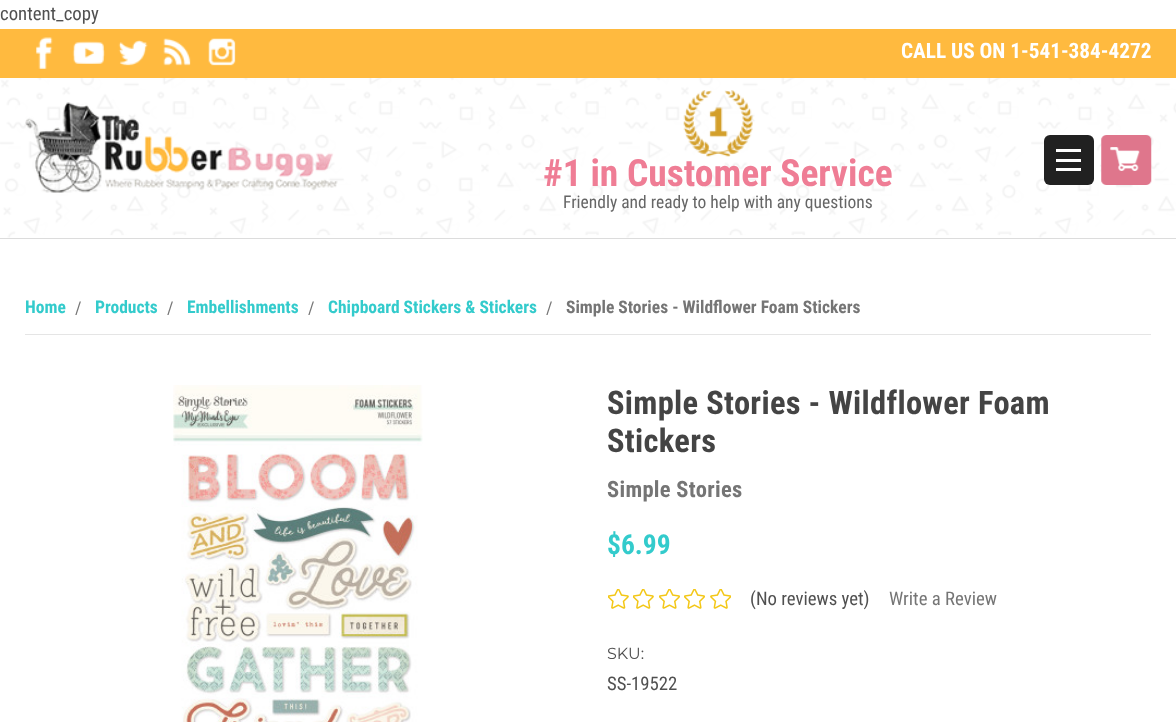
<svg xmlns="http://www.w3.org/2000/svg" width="1176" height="722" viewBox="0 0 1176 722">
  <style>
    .t1 { font: 18.75px Roboto Condensed; fill: #505050; }
    .t2 { font: bold 21.25px Roboto Condensed; fill: #fff; }
    .t3 { font: bold 37.5px Roboto Condensed; fill: #ef7d95; }
    .t4 { font: 17.5px Roboto Condensed; fill: #666; }
    .t5 { font: bold 17.5px Roboto Condensed; fill: #33cbcc; }
    .t6 { font: 17.5px Roboto Condensed; fill: #757575; }
    .t7 { font: bold 17.5px Roboto Condensed; fill: #757575; }
    .t8 { font: bold 32.5px Roboto Condensed; letter-spacing: 0.3px; fill: #444; }
    .t9 { font: bold 22.5px Roboto Condensed; letter-spacing: 0.3px; fill: #757575; }
    .t10 { font: bold 27.5px Roboto Condensed; fill: #33cbcc; }
    .t11 { font: 18.75px Roboto Condensed; fill: #757575; }
    .t12 { font: 100 16px Montserrat; fill: #505050; }
  </style>
  <rect width="100%" height="100%" fill="#fff"/>
  <text x="0" y="20" class="t1">content_copy</text>
  <rect x="0" y="238" width="1176" height="1" fill="#dcdcdc"/>
  <rect x="0" y="29" width="1176" height="49" fill="#ffba3f"/>
  <image x="36" y="37" width="17" height="32" href="images/1.png"/>
  <image x="72" y="41" width="33" height="23" href="images/2.png"/>
  <image x="118" y="40" width="30" height="26" href="images/3.png"/>
  <image x="163" y="38" width="28" height="28" href="images/4.png"/>
  <image x="208" y="38" width="28" height="28" href="images/5.png"/>
  <text x="901" y="58" class="t2">CALL US ON 1-541-384-4272</text>
  <image x="0" y="78" width="1176" height="160" href="images/6.png"/>
  <image x="25" y="102" width="313" height="91" href="images/7.png"/>
  <image x="683" y="90" width="70" height="67" href="images/8.png"/>
  <text x="543" y="186" class="t3">#1 in Customer Service</text>
  <text x="563" y="208" class="t4">Friendly and ready to help with any questions</text>
  <image x="1101" y="135" width="51" height="50" href="images/9.png"/>
  <rect x="1044" y="135" width="50" height="50" rx="6" fill="#212121"/>
  <rect x="1056" y="159" width="25" height="3" fill="#fff"/>
  <rect x="1056" y="149" width="25" height="3" fill="#fff"/>
  <rect x="1056" y="168" width="25" height="3" fill="#fff"/>
  <rect x="25" y="334" width="1126" height="1" fill="#e5e5e5"/>
  <text x="25" y="313" class="t5">Home</text>
  <text x="75" y="314" class="t6">/</text>
  <text x="95" y="313" class="t5">Products</text>
  <text x="167" y="314" class="t6">/</text>
  <text x="187" y="313" class="t5">Embellishments</text>
  <text x="308" y="314" class="t6">/</text>
  <text x="328" y="313" class="t5">Chipboard Stickers &amp; Stickers</text>
  <text x="546" y="314" class="t6">/</text>
  <text x="566" y="313" class="t7">Simple Stories - Wildflower Foam Stickers</text>
  <image x="173" y="385" width="250" height="337" href="images/10.png"/>
  <text x="607" y="414" class="t8">Simple Stories - Wildflower Foam</text>
  <text x="607" y="452" class="t8">Stickers</text>
  <text x="607" y="497" class="t9">Simple Stories</text>
  <text x="607" y="554" class="t10">$6.99</text>
  <image x="608" y="589" width="21" height="20" href="images/11.png"/>
  <image x="633" y="589" width="21" height="20" href="images/11.png"/>
  <image x="659" y="589" width="21" height="20" href="images/12.png"/>
  <image x="684" y="589" width="21" height="20" href="images/12.png"/>
  <image x="710" y="589" width="21" height="20" href="images/13.png"/>
  <text x="750" y="605" class="t1">(No reviews yet)</text>
  <text x="889" y="605" class="t11">Write a Review</text>
  <text x="607" y="659" class="t12">SKU:</text>
  <text x="607" y="690" class="t1">SS-19522</text>
</svg>
